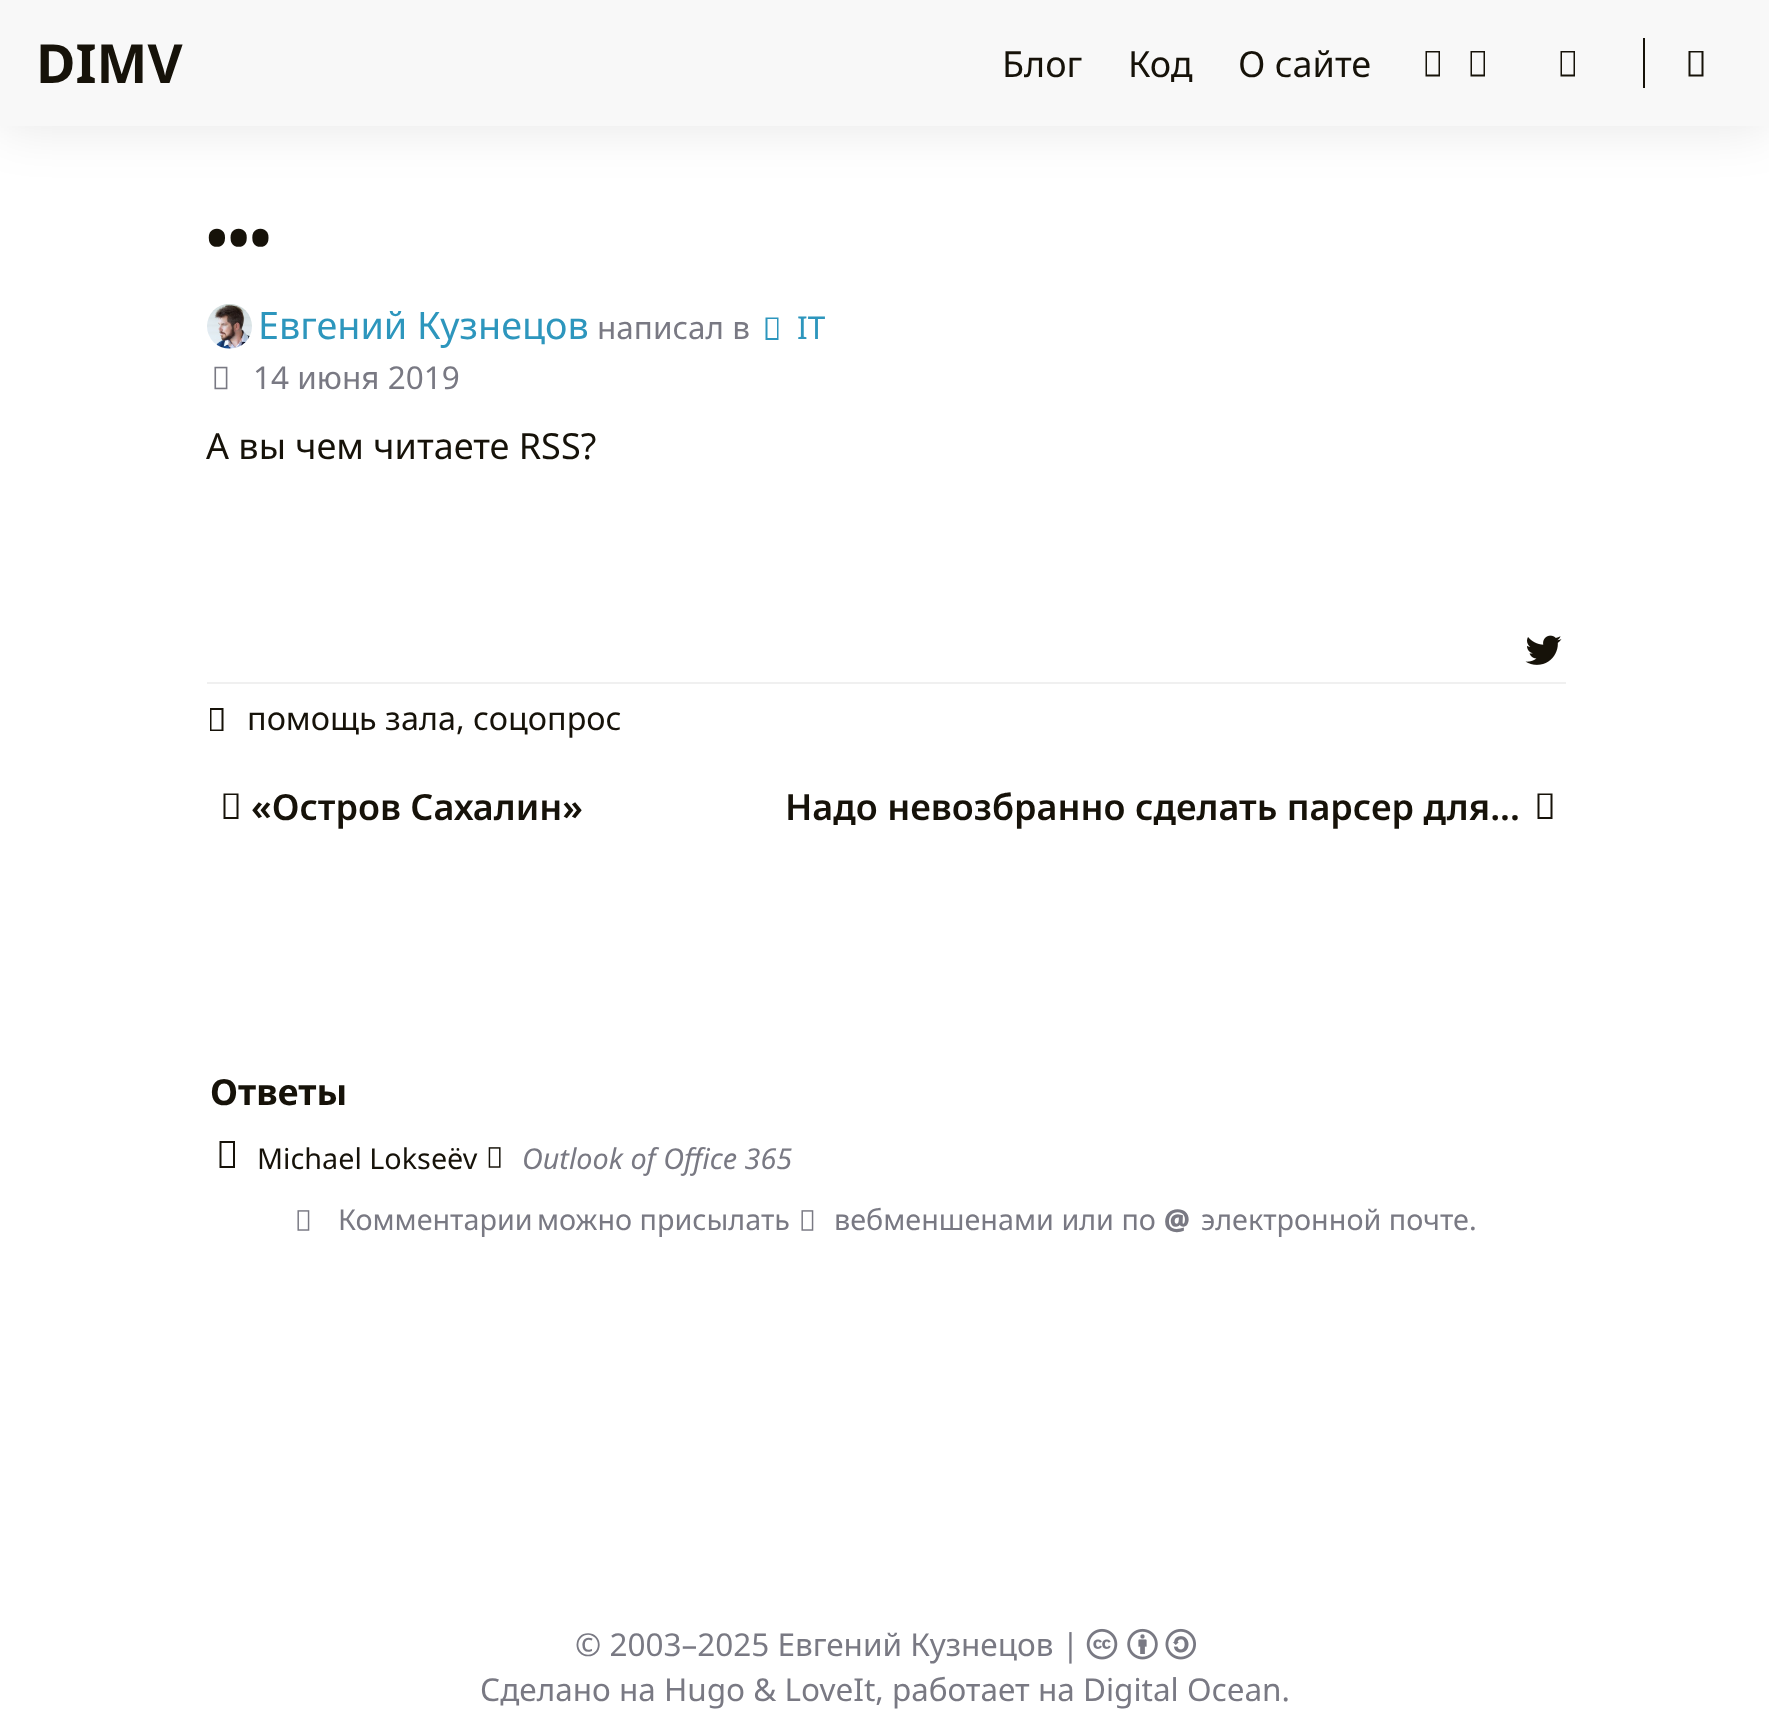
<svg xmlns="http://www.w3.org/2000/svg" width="1769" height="1730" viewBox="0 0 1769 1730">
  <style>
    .t1 { font: bold 54px Noto Sans; fill: #161209; }
    .t2 { font: 36px Noto Sans; fill: #161209; }
    .t3 { font: bold 58px Noto Sans; fill: #161209; }
    .t4 { font: 37.75px Noto Sans; fill: #2d96bd; }
    .t5 { font: 31.5px Noto Sans; fill: #797983; }
    .t6 { font: 31.5px Noto Sans; fill: #2d96bd; }
    .t7 { font: 32.4px Noto Sans; fill: #161209; }
    .t8 { font: 600 36px Noto Sans; fill: #161209; }
    .t9 { font: bold 36px Noto Sans; fill: #161209; }
    .t10 { font: 28.75px Noto Sans; fill: #161209; }
    .t11 { font: italic 28.75px Noto Sans; fill: #797983; }
    .t12 { font: 28.75px Noto Sans; fill: #797983; }
    .t13 { font: 900 28.75px Noto Sans; fill: #797983; }
  </style>
  <rect width="100%" height="100%" fill="#fff"/>
  <rect x="0" y="0" width="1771" height="126" fill="#0000001a" filter="blur(27px)"/>
  <rect x="0" y="0" width="1769" height="126" fill="#f8f8f8"/>
  <text x="36" y="83" class="t1">DIMV</text>
  <text x="1002" y="77" class="t2">Блог</text>
  <text x="1128" y="77" class="t2">Код</text>
  <text x="1238" y="77" class="t2">О сайте</text>
  <path d="M1425.5 76.5V51H1440V76.5ZM1427 74.5H1438.5V52.5H1427ZM1470.5 76.5V51H1485V76.5ZM1472 74.5H1483.5V52.5H1472Z" fill="#161209"/>
  <path d="M1560.5 76.5V51H1575V76.5ZM1562 74.5H1573.5V52.5H1562Z" fill="#161209"/>
  <rect x="1643" y="38" width="2" height="50" fill="#161209"/>
  <path d="M1688.5 76.5V51H1703.5V76.5ZM1690.5 74.5H1701.5V52.5H1690.5Z" fill="#161209"/>
  <text x="206" y="259" class="t3">•••</text>
  <image x="207" y="304" width="45" height="45" href="images/1.png"/>
  <text x="258" y="339" class="t4">Евгений Кузнецов</text>
  <text x="597" y="339" class="t5">написал в</text>
  <path d="M765.5 340V317.5H778.5V340ZM767.5 338H777V319H767.5Z" fill="#2d96bd"/>
  <text x="797" y="339" class="t6">IT</text>
  <image x="214" y="366" width="14" height="24" href="images/2.png"/>
  <text x="253" y="389" class="t5">14 июня 2019</text>
  <text x="206" y="459" class="t2">А вы чем читаете RSS?</text>
  <rect x="207" y="682" width="1359" height="2" fill="#f0f0f0"/>
  <image x="1525" y="635" width="37" height="30" href="images/3.png"/>
  <path d="M210 731V708H223.5V731ZM211.5 729.5H221.5V710H211.5Z" fill="#161209"/>
  <text x="247" y="730" class="t7">помощь зала, соцопрос</text>
  <path d="M223.5 819V793.5H238.5V819ZM225.5 817H236.5V795H225.5Z" fill="#161209"/>
  <text x="251" y="820" class="t8">«Остров Сахалин»</text>
  <text x="785" y="820" class="t8">Надо невозбранно сделать парсер для...</text>
  <path d="M1537.5 819V793.5H1552.5V819ZM1539.5 817H1550.5V795H1539.5Z" fill="#161209"/>
  <text x="210" y="1105" class="t9">Ответы</text>
  <path d="M219.5 1168V1141H235V1168ZM221.5 1166H233V1143H221.5Z" fill="#161209"/>
  <text x="257" y="1169" class="t10">Michael Lokseëv</text>
  <image x="488" y="1147" width="13" height="21" href="images/4.png"/>
  <text x="522" y="1169" class="t11">Outlook of Office 365</text>
  <image x="297" y="1210" width="13" height="21" href="images/5.png"/>
  <text x="338" y="1230" class="t12">Комментарии</text>
  <text x="537" y="1230" class="t12">можно присылать</text>
  <image x="801" y="1210" width="13" height="21" href="images/5.png"/>
  <text x="834" y="1230" class="t12">вебменшенами или по</text>
  <text x="1164" y="1230" class="t13">@</text>
  <text x="1201" y="1230" class="t12">электронной почте.</text>
  <text x="575" y="1656" class="t5">© 2003–2025 Евгений Кузнецов |</text>
  <image x="1086" y="1628" width="32" height="32" href="images/6.png"/>
  <image x="1127" y="1628" width="31" height="32" href="images/7.png"/>
  <image x="1165" y="1628" width="31" height="32" href="images/8.png"/>
  <text x="480" y="1701" class="t5">Сделано на Hugo &amp; LoveIt, работает на Digital Ocean.</text>
</svg>
